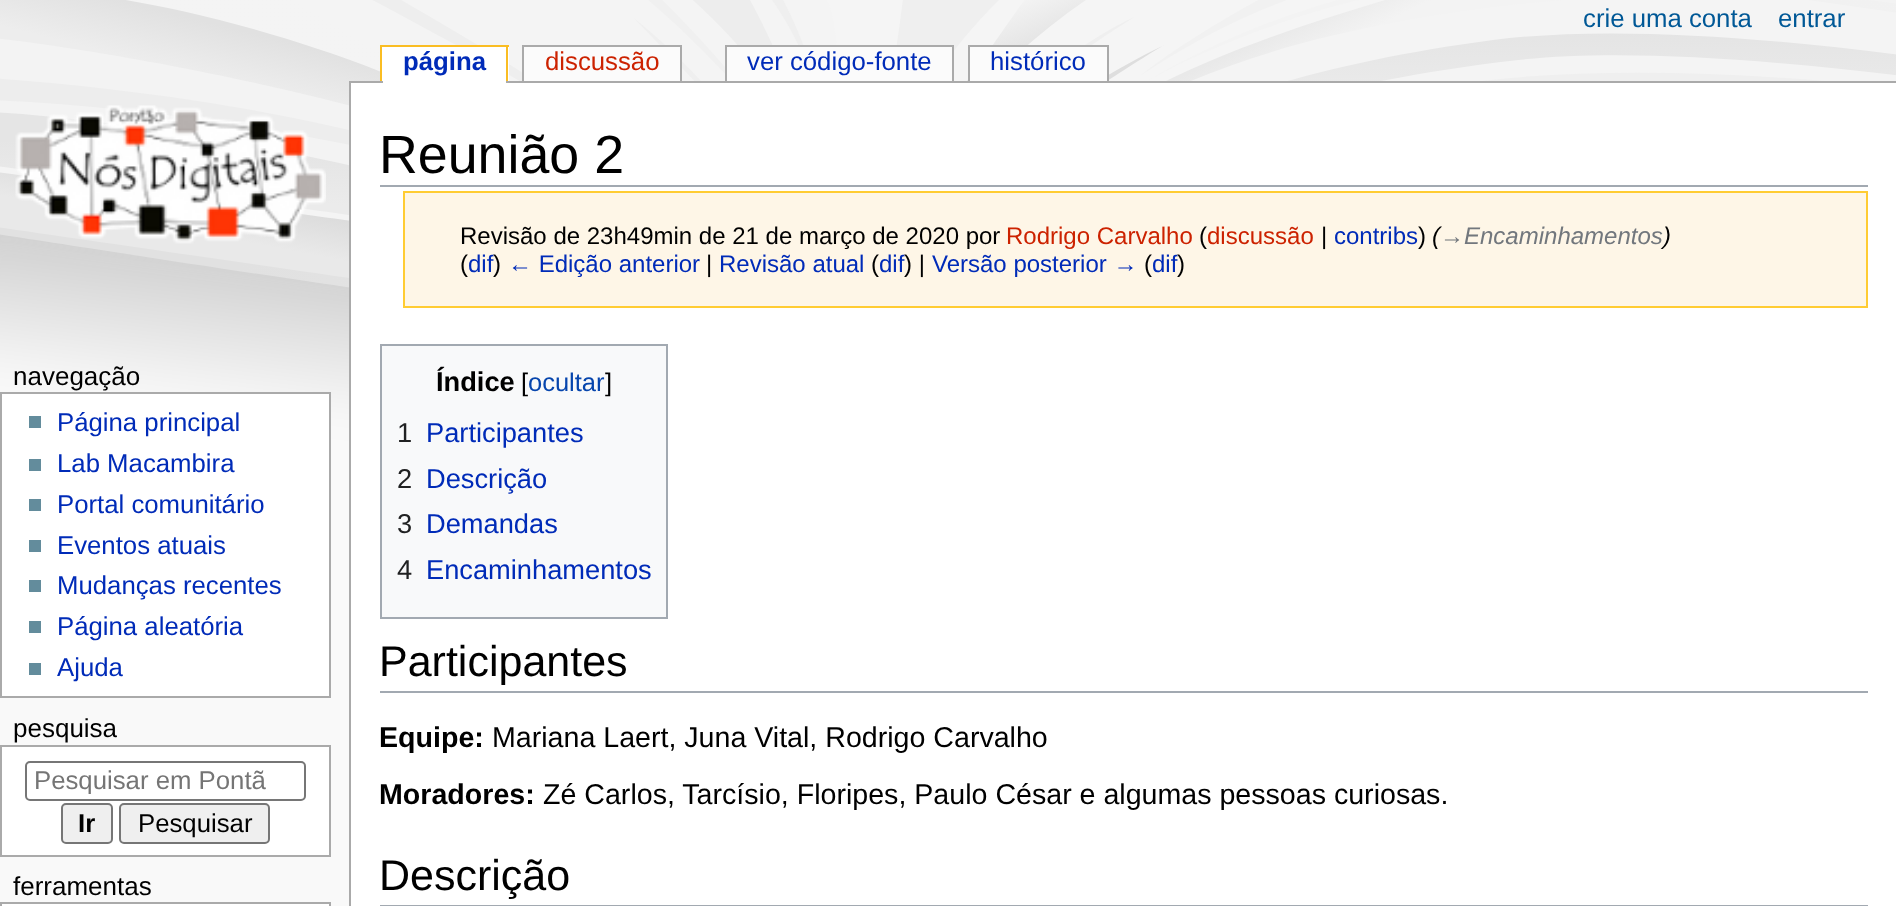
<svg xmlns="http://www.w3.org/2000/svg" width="1896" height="906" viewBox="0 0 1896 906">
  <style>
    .t1 { font: 25.75px Liberation Sans; fill: #005896; }
    .t2 { font: bold 25.75px Liberation Sans; fill: #002bb8; }
    .t3 { font: 25.75px Liberation Sans; fill: #c20; }
    .t4 { font: 25.75px Liberation Sans; fill: #002bb8; }
    .t5 { font: 26px Liberation Sans; fill: #000; }
    .t6 { font: 25.75px Liberation Sans; fill: #757575; }
    .t7 { font: bold 25.75px Liberation Sans; fill: #000; }
    .t8 { font: 25.75px Liberation Sans; fill: #000; }
    .t9 { font: 53.75px Liberation Sans; fill: #000; }
    .t10 { font: 24px Liberation Sans; fill: #000; }
    .t11 { font: 24px Liberation Sans; fill: #c20; }
    .t12 { font: 24px Liberation Sans; fill: #002bb8; }
    .t13 { font: italic 24px Liberation Sans; fill: #000; }
    .t14 { font: italic 24px Liberation Sans; fill: #72777d; }
    .t15 { font: bold 27.25px Liberation Sans; fill: #000; }
    .t16 { font: 25.5px Liberation Sans; fill: #000; }
    .t17 { font: 25.5px Liberation Sans; fill: #0645ad; }
    .t18 { font: 27.25px Liberation Sans; fill: #202122; }
    .t19 { font: 27.25px Liberation Sans; fill: #002bb8; }
    .t20 { font: 43px Liberation Sans; fill: #000; }
    .t21 { font: bold 28.6px Liberation Sans; fill: #000; }
    .t22 { font: 28.6px Liberation Sans; fill: #000; }
  </style>
  <defs>
    <clipPath id="clip1"><rect x="34" y="767" width="236" height="27"/></clipPath>
  </defs>
  <rect width="100%" height="100%" fill="#f9f9f9"/>
  <image x="0" y="0" width="1896" height="471" href="images/1.png"/>
  <text x="1583" y="27" class="t1">crie uma conta</text>
  <text x="1778" y="27" class="t1">entrar</text>
  <rect x="382" y="47" width="127" height="34" fill="#fff"/>
  <text x="403" y="70" class="t2">página</text>
  <rect x="380" y="45" width="129" height="2" fill="#fabd23"/>
  <rect x="506" y="45" width="2" height="36" fill="#fabd23"/>
  <rect x="380" y="45" width="2" height="36" fill="#fabd23"/>
  <rect x="349" y="81" width="1547" height="2" fill="#aaa"/>
  <rect x="383" y="81" width="123" height="2" fill="#fff"/>
  <rect x="524" y="47" width="156" height="34" fill="#fbfbfb"/>
  <text x="545" y="70" class="t3">discussão</text>
  <rect x="522" y="45" width="160" height="2" fill="#aaa"/>
  <rect x="680" y="45" width="2" height="36" fill="#aaa"/>
  <rect x="522" y="45" width="2" height="36" fill="#aaa"/>
  <rect x="727" y="47" width="225" height="34" fill="#fbfbfb"/>
  <text x="747" y="70" class="t4">ver código-fonte</text>
  <rect x="725" y="45" width="229" height="2" fill="#aaa"/>
  <rect x="952" y="45" width="2" height="36" fill="#aaa"/>
  <rect x="725" y="45" width="2" height="36" fill="#aaa"/>
  <rect x="970" y="47" width="137" height="34" fill="#fbfbfb"/>
  <text x="990" y="70" class="t4">histórico</text>
  <rect x="968" y="45" width="141" height="2" fill="#aaa"/>
  <rect x="1107" y="45" width="2" height="36" fill="#aaa"/>
  <rect x="968" y="45" width="2" height="36" fill="#aaa"/>
  <image x="15" y="105" width="311" height="139" href="images/2.png"/>
  <text x="13" y="385" class="t5">navegação</text>
  <rect x="1" y="393" width="329" height="304" fill="#fff" stroke="#aaa" stroke-width="2"/>
  <rect x="29" y="416" width="12" height="12" fill="#638c9c"/>
  <text x="57" y="431" class="t4">Página principal</text>
  <rect x="29" y="459" width="12" height="12" fill="#638c9c"/>
  <text x="57" y="472" class="t4">Lab Macambira</text>
  <rect x="29" y="499" width="12" height="12" fill="#638c9c"/>
  <text x="57" y="513" class="t4">Portal comunitário</text>
  <rect x="29" y="540" width="12" height="12" fill="#638c9c"/>
  <text x="57" y="554" class="t4">Eventos atuais</text>
  <rect x="29" y="580" width="12" height="12" fill="#638c9c"/>
  <text x="57" y="594" class="t4">Mudanças recentes</text>
  <rect x="29" y="621" width="12" height="12" fill="#638c9c"/>
  <text x="57" y="635" class="t4">Página aleatória</text>
  <rect x="29" y="663" width="12" height="12" fill="#638c9c"/>
  <text x="57" y="676" class="t4">Ajuda</text>
  <text x="13" y="737" class="t5">pesquisa</text>
  <rect x="1" y="746" width="329" height="110" fill="#fff" stroke="#aaa" stroke-width="2"/>
  <rect x="26" y="762" width="279" height="38" rx="4" fill="none" stroke="#767676" stroke-width="2"/>
  <g clip-path="url(#clip1)">
    <text x="34" y="789" class="t6">Pesquisar em Pontã</text>
  </g>
  <rect x="62" y="804" width="50" height="39" rx="4" fill="#efefef" stroke="#767676" stroke-width="2"/>
  <text x="78" y="832" class="t7">Ir</text>
  <rect x="120" y="804" width="149" height="39" rx="4" fill="#efefef" stroke="#767676" stroke-width="2"/>
  <text x="138" y="832" class="t8">Pesquisar</text>
  <text x="13" y="895" class="t5">ferramentas</text>
  <rect x="1" y="903" width="329" height="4" fill="#fff" stroke="#aaa" stroke-width="2"/>
  <rect x="351" y="83" width="1545" height="823" fill="#fff"/>
  <rect x="349" y="81" width="2" height="825" fill="#aaa"/>
  <rect x="380" y="185" width="1488" height="2" fill="#a2a9b1"/>
  <text x="379" y="173" class="t9">Reunião 2</text>
  <rect x="404" y="192" width="1463" height="115" fill="#fef6e7" stroke="#fc3" stroke-width="2"/>
  <text x="460" y="244" class="t10">Revisão de 23h49min de 21 de março de 2020 por</text>
  <text x="1006" y="244" class="t11">Rodrigo Carvalho</text>
  <text x="1199" y="244" class="t10">(</text>
  <text x="1207" y="244" class="t11">discussão</text>
  <text x="1321" y="244" class="t10">|</text>
  <text x="1334" y="244" class="t12">contribs</text>
  <text x="1418" y="244" class="t10">)</text>
  <text x="1432" y="244" class="t13">(</text>
  <text x="1440" y="244" class="t14">→Encaminhamentos</text>
  <text x="1663" y="244" class="t13">)</text>
  <text x="460" y="272" class="t10">(</text>
  <text x="468" y="272" class="t12">dif</text>
  <text x="493" y="272" class="t10">)</text>
  <text x="508" y="272" class="t12">← Edição anterior</text>
  <text x="706" y="272" class="t10">|</text>
  <text x="719" y="272" class="t12">Revisão atual</text>
  <text x="871" y="272" class="t10">(</text>
  <text x="879" y="272" class="t12">dif</text>
  <text x="904" y="272" class="t10">) |</text>
  <text x="932" y="272" class="t12">Versão posterior →</text>
  <text x="1144" y="272" class="t10">(</text>
  <text x="1152" y="272" class="t12">dif</text>
  <text x="1177" y="272" class="t10">)</text>
  <rect x="381" y="345" width="286" height="273" fill="#f8f9fa" stroke="#a2a9b1" stroke-width="2"/>
  <text x="436" y="391" class="t15">Índice</text>
  <text x="521" y="391" class="t16">[</text>
  <text x="528" y="391" class="t17">ocultar</text>
  <text x="605" y="391" class="t16">]</text>
  <text x="397" y="442" class="t18">1</text>
  <text x="426" y="442" class="t19">Participantes</text>
  <text x="397" y="488" class="t18">2</text>
  <text x="426" y="488" class="t19">Descrição</text>
  <text x="397" y="533" class="t18">3</text>
  <text x="426" y="533" class="t19">Demandas</text>
  <text x="397" y="579" class="t18">4</text>
  <text x="426" y="579" class="t19">Encaminhamentos</text>
  <rect x="380" y="691" width="1488" height="2" fill="#a2a9b1"/>
  <text x="379" y="676" class="t20">Participantes</text>
  <text x="379" y="747" class="t21">Equipe:</text>
  <text x="492" y="747" class="t22">Mariana Laert, Juna Vital, Rodrigo Carvalho</text>
  <text x="379" y="804" class="t21">Moradores:</text>
  <text x="543" y="804" class="t22">Zé Carlos, Tarcísio, Floripes, Paulo César e algumas pessoas curiosas.</text>
  <rect x="380" y="905" width="1488" height="1" fill="#a2a9b1"/>
  <text x="379" y="890" class="t20">Descrição</text>
</svg>
